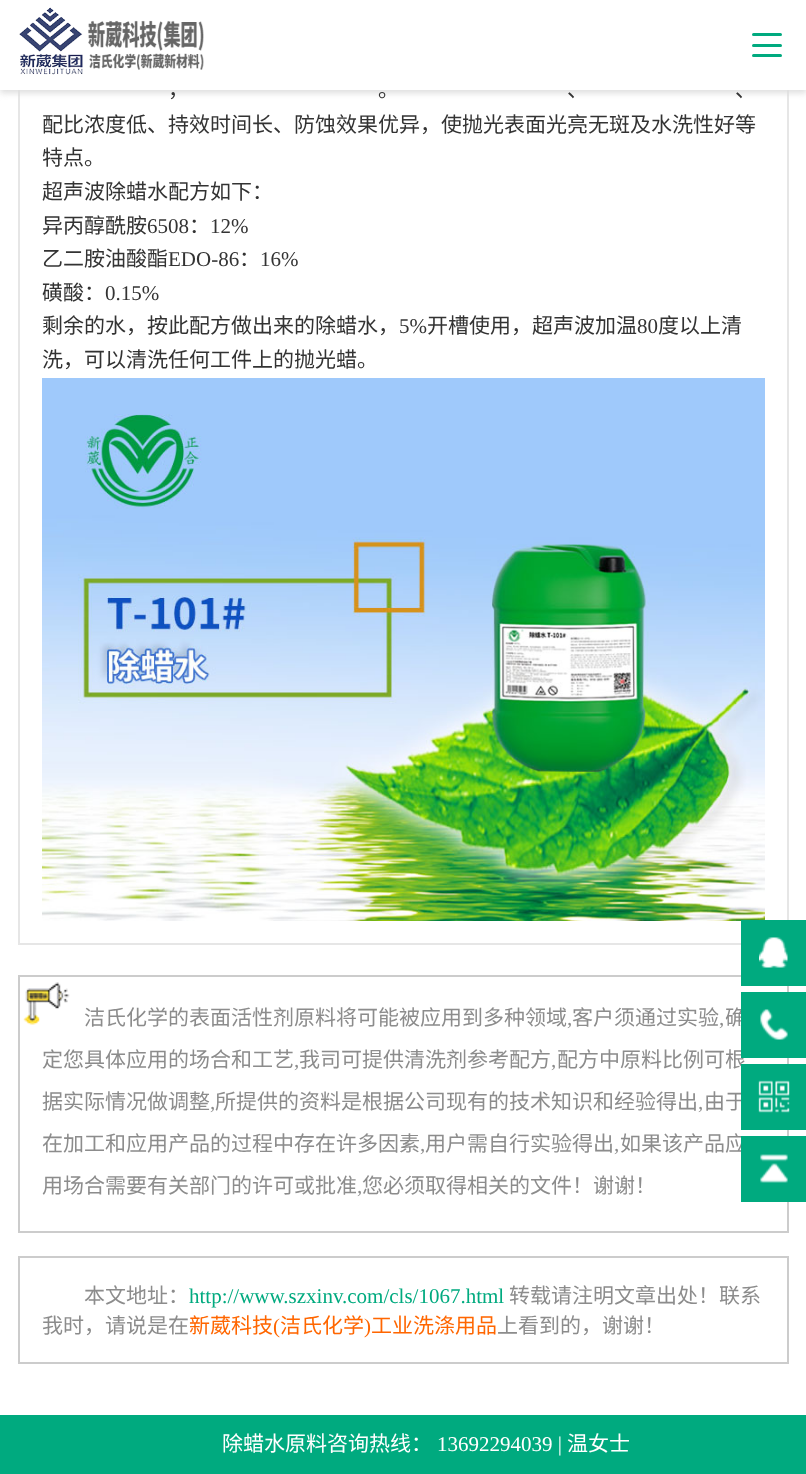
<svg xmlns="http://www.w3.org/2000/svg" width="806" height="1474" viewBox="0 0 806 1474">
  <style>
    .t1 { font: 21px Noto Sans CJK SC; fill: #333; }
    .t2 { font: 21px Liberation Serif; fill: #333; }
    .t3 { font: 21px Noto Sans CJK SC; fill: #8c8c8c; }
    .t4 { font: 21px Liberation Serif; fill: #8c8c8c; }
    .t5 { font: 21px Liberation Serif; fill: #00aa7f; }
    .t6 { font: 21px Noto Sans CJK SC; fill: #f60; }
    .t7 { font: 21px Liberation Serif; fill: #f60; }
    .t8 { font: 21px Noto Sans CJK SC; fill: #fff; }
    .t9 { font: 21px Liberation Serif; fill: #fff; }
  </style>
  <rect width="100%" height="100%" fill="#fff"/>
  <rect x="19" y="-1" width="769" height="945" fill="none" stroke="#e6e6e6" stroke-width="2"/>
  <rect x="0" y="3" width="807" height="90" fill="#ddd" filter="blur(3px)"/>
  <rect x="0" y="0" width="806" height="90" fill="#fff"/>
  <image x="19" y="7" width="185" height="68" href="images/1.png"/>
  <rect x="752" y="33" width="30" height="3" rx="1.5" fill="#00aa7f"/>
  <rect x="752" y="44" width="30" height="3" rx="1.5" fill="#00aa7f"/>
  <rect x="752" y="54" width="30" height="3" rx="1.5" fill="#00aa7f"/>
  <text x="168" y="97" class="t1">，</text>
  <text x="378" y="97" class="t1">。</text>
  <text x="567" y="97" class="t1">、</text>
  <text x="735" y="97" class="t1">、</text>
  <text x="42" y="132" class="t1">配比浓度低、持效时间长、防蚀效果优异，使抛光表面光亮无斑及水洗性好等</text>
  <text x="42" y="165" class="t1">特点。</text>
  <text x="42" y="199" class="t1">超声波除蜡水配方如下：</text>
  <text x="42" y="233" class="t1">异丙醇酰胺</text>
  <text x="147" y="233" class="t2">6508</text>
  <text x="189" y="233" class="t1">：</text>
  <text x="210" y="233" class="t2">12%</text>
  <text x="42" y="266" class="t1">乙二胺油酸酯</text>
  <text x="168" y="266" class="t2">EDO-86</text>
  <text x="239" y="266" class="t1">：</text>
  <text x="260" y="266" class="t2">16%</text>
  <text x="42" y="300" class="t1">磺酸：</text>
  <text x="105" y="300" class="t2">0.15%</text>
  <text x="42" y="333" class="t1">剩余的水，按此配方做出来的除蜡水，</text>
  <text x="399" y="333" class="t2">5%</text>
  <text x="427" y="333" class="t1">开槽使用，超声波加温</text>
  <text x="637" y="333" class="t2">80</text>
  <text x="658" y="333" class="t1">度以上清</text>
  <text x="42" y="367" class="t1">洗，可以清洗任何工件上的抛光蜡。</text>
  <image x="42" y="378" width="723" height="543" href="images/2.png"/>
  <image x="23" y="982" width="47" height="43" href="images/3.png"/>
  <rect x="19" y="976" width="769" height="256" fill="none" stroke="#ccc" stroke-width="2"/>
  <text x="84" y="1025" class="t3">洁氏化学的表面活性剂原料将可能被应用到多种领域</text>
  <text x="567" y="1025" class="t4">,</text>
  <text x="572" y="1025" class="t3">客户须通过实验</text>
  <text x="719" y="1025" class="t4">,</text>
  <text x="725" y="1025" class="t3">确</text>
  <text x="42" y="1067" class="t3">定您具体应用的场合和工艺</text>
  <text x="294" y="1067" class="t4">,</text>
  <text x="299" y="1067" class="t3">我司可提供清洗剂参考配方</text>
  <text x="551" y="1067" class="t4">,</text>
  <text x="557" y="1067" class="t3">配方中原料比例可根</text>
  <text x="42" y="1109" class="t3">据实际情况做调整</text>
  <text x="210" y="1109" class="t4">,</text>
  <text x="215" y="1109" class="t3">所提供的资料是根据公司现有的技术知识和经验得出</text>
  <text x="698" y="1109" class="t4">,</text>
  <text x="704" y="1109" class="t3">由于</text>
  <text x="42" y="1151" class="t3">在加工和应用产品的过程中存在许多因素</text>
  <text x="420" y="1151" class="t4">,</text>
  <text x="425" y="1151" class="t3">用户需自行实验得出</text>
  <text x="614" y="1151" class="t4">,</text>
  <text x="620" y="1151" class="t3">如果该产品应</text>
  <text x="42" y="1193" class="t3">用场合需要有关部门的许可或批准</text>
  <text x="357" y="1193" class="t4">,</text>
  <text x="362" y="1193" class="t3">您必须取得相关的文件！谢谢！</text>
  <rect x="19" y="1257" width="769" height="106" fill="none" stroke="#ccc" stroke-width="2"/>
  <text x="84" y="1303" class="t3">本文地址：</text>
  <text x="189" y="1303" class="t5">http://www.szxinv.com/cls/1067.html</text>
  <text x="509" y="1303" class="t3">转载请注明文章出处！联系</text>
  <text x="42" y="1333" class="t3">我时，请说是在</text>
  <text x="189" y="1333" class="t6">新葳科技</text>
  <text x="273" y="1333" class="t7">(</text>
  <text x="280" y="1333" class="t6">洁氏化学</text>
  <text x="364" y="1333" class="t7">)</text>
  <text x="371" y="1333" class="t6">工业洗涤用品</text>
  <text x="497" y="1333" class="t3">上看到的，谢谢！</text>
  <rect x="741" y="920" width="65" height="66" fill="#00aa7f"/>
  <image x="759" y="937" width="29" height="31" href="images/4.png"/>
  <rect x="741" y="992" width="65" height="66" fill="#00aa7f"/>
  <image x="760" y="1009" width="28" height="31" href="images/5.png"/>
  <rect x="741" y="1064" width="65" height="66" fill="#00aa7f"/>
  <image x="758" y="1080" width="32" height="33" href="images/6.png"/>
  <rect x="741" y="1136" width="65" height="66" fill="#00aa7f"/>
  <image x="760" y="1154" width="28" height="29" href="images/7.png"/>
  <rect x="0" y="1415" width="806" height="59" fill="#00aa7f"/>
  <text x="222" y="1451" class="t8">除蜡水原料咨询热线：</text>
  <text x="437" y="1451" class="t9">13692294039 |</text>
  <text x="567" y="1451" class="t8">温女士</text>
</svg>
